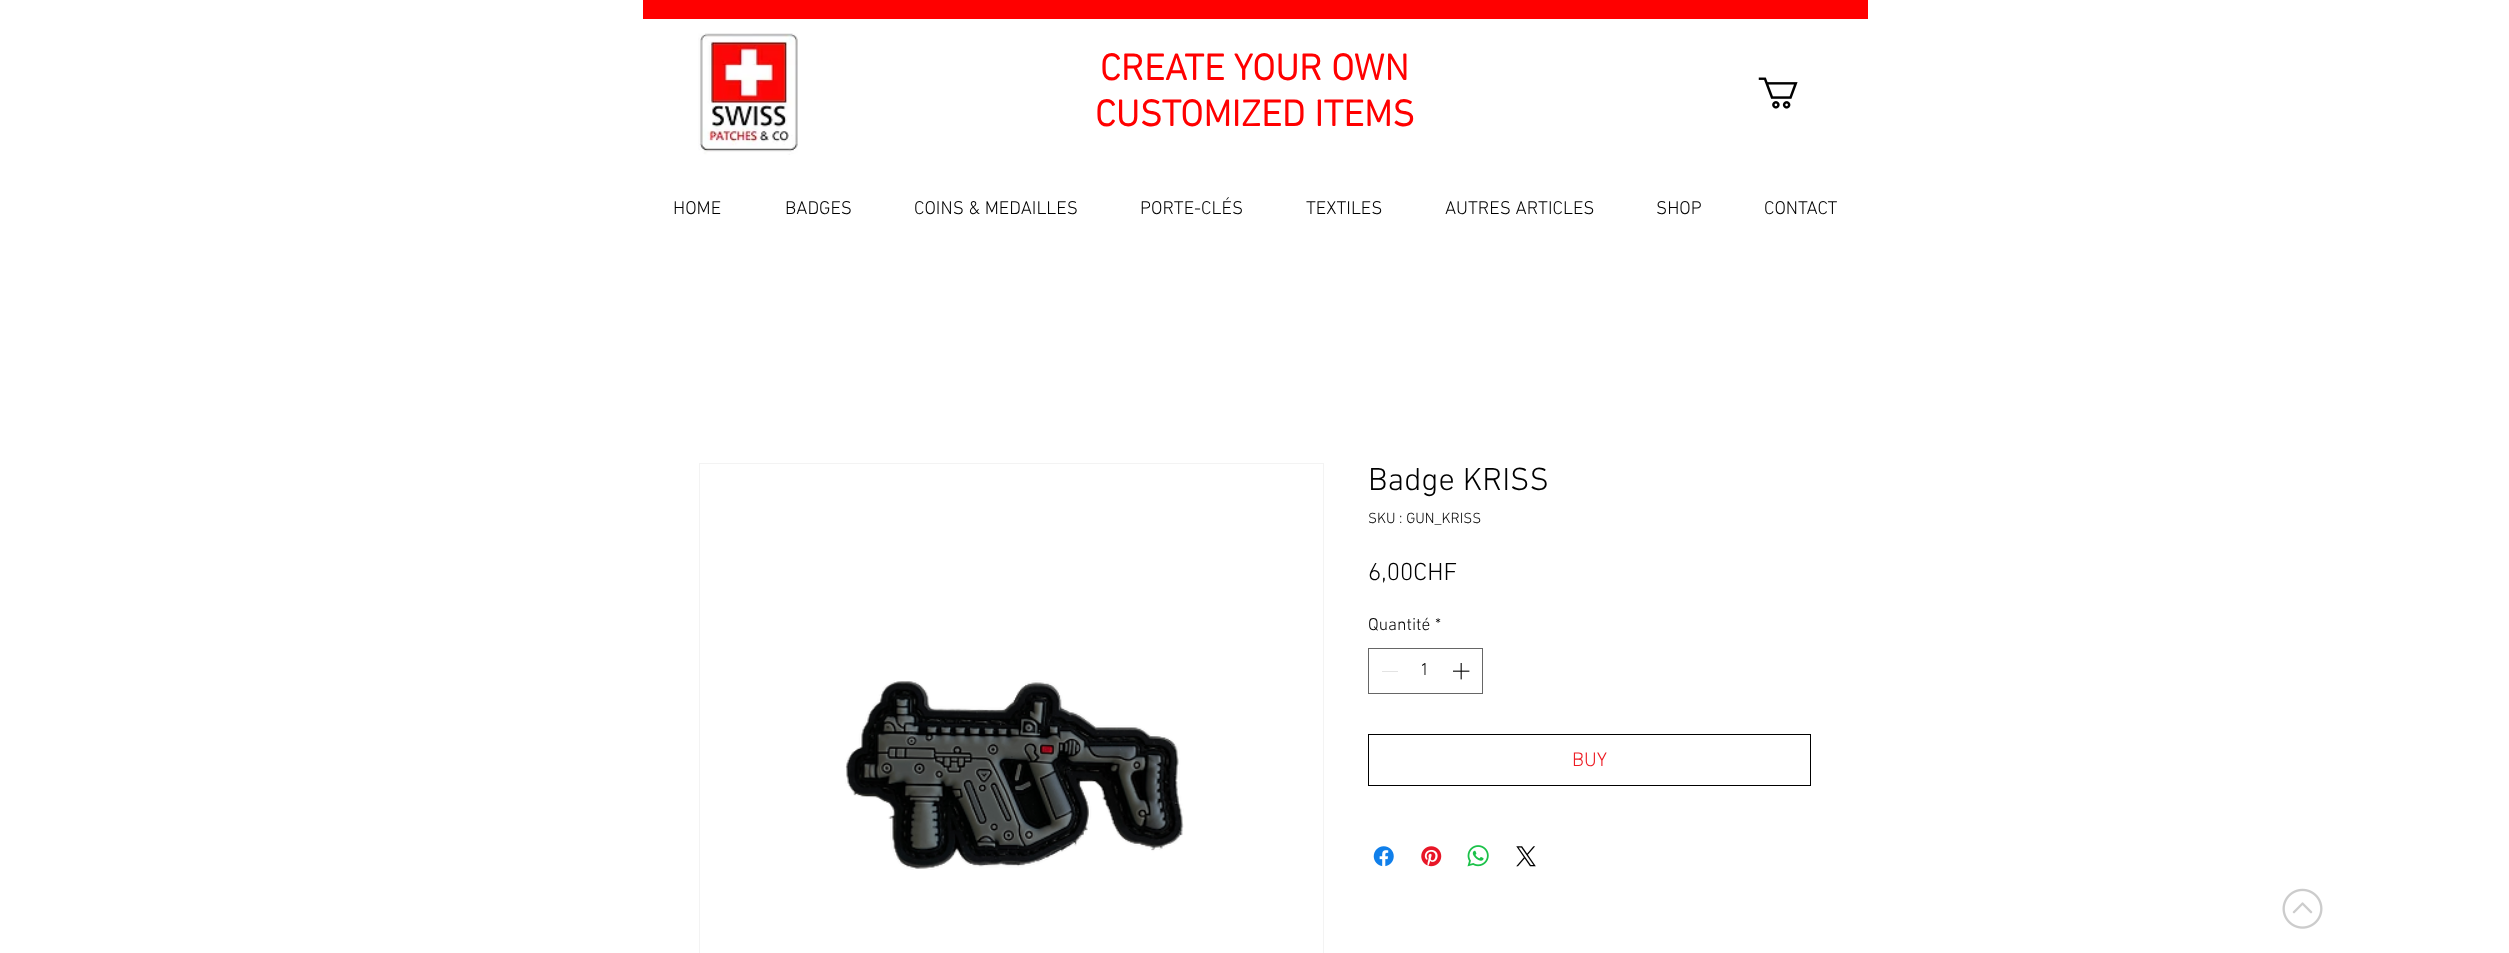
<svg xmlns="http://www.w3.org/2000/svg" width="2509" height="953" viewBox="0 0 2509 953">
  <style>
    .t1 { font: bold 37.5px 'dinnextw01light'; fill: #f00; }
    .t2 { font: 300 18.75px 'dinnextw01light'; fill: #000; }
    .t3 { font: 300 32.5px 'dinnextw01light'; fill: #000; }
    .t4 { font: 300 15px 'dinnextw01light'; fill: #000; }
    .t5 { font: 300 25px 'dinnextw01light'; fill: #000; }
    .t6 { font: 300 17.5px 'dinnextw01light'; fill: #000; }
    .t7 { font: 300 20px 'dinnextw01light'; fill: #ed1c24; }
  </style>
  <rect width="100%" height="100%" fill="#fff"/>
  <rect x="643" y="0" width="1225" height="19" fill="#f00"/>
  <image x="698" y="33" width="100" height="122" href="images/1.png"/>
  <text x="1100" y="80" class="t1">CREATE YOUR OWN</text>
  <text x="1095" y="126" class="t1">CUSTOMIZED ITEMS</text>
  <image x="1758" y="77" width="40" height="32" href="images/2.png"/>
  <text x="673" y="214" class="t2">HOME</text>
  <text x="785" y="214" class="t2">BADGES</text>
  <text x="914" y="214" class="t2">COINS &amp; MEDAILLES</text>
  <text x="1140" y="214" class="t2">PORTE-CLÉS</text>
  <text x="1306" y="214" class="t2">TEXTILES</text>
  <text x="1445" y="214" class="t2">AUTRES ARTICLES</text>
  <text x="1656" y="214" class="t2">SHOP</text>
  <text x="1764" y="214" class="t2">CONTACT</text>
  <rect x="699.5" y="463.5" width="624" height="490" fill="none" stroke="#f3f3f3"/>
  <image x="845" y="680" width="339" height="190" href="images/3.png"/>
  <text x="1368" y="490" class="t3">Badge KRISS</text>
  <text x="1368" y="523" class="t4">SKU : GUN_KRISS</text>
  <text x="1368" y="580" class="t5">6,00CHF</text>
  <text x="1368" y="630" class="t6">Quantité</text>
  <text x="1435" y="630" class="t6">*</text>
  <rect x="1368.5" y="648.5" width="114" height="45" fill="none" stroke="#666"/>
  <rect x="1382" y="671" width="16" height="1" fill="#e3e3e3"/>
  <text x="1420" y="675" class="t6">1</text>
  <image x="1453" y="663" width="17" height="17" href="images/4.png"/>
  <rect x="1368.5" y="734.5" width="442" height="51" fill="none" stroke="#000"/>
  <text x="1572" y="766" class="t7">BUY</text>
  <image x="1373" y="846" width="21" height="21" href="images/5.png"/>
  <image x="1421" y="846" width="21" height="21" href="images/6.png"/>
  <image x="1467" y="845" width="22" height="22" href="images/7.png"/>
  <image x="1516" y="846" width="20" height="21" href="images/8.png"/>
  <image x="2282" y="888" width="41" height="41" href="images/9.png"/>
</svg>
